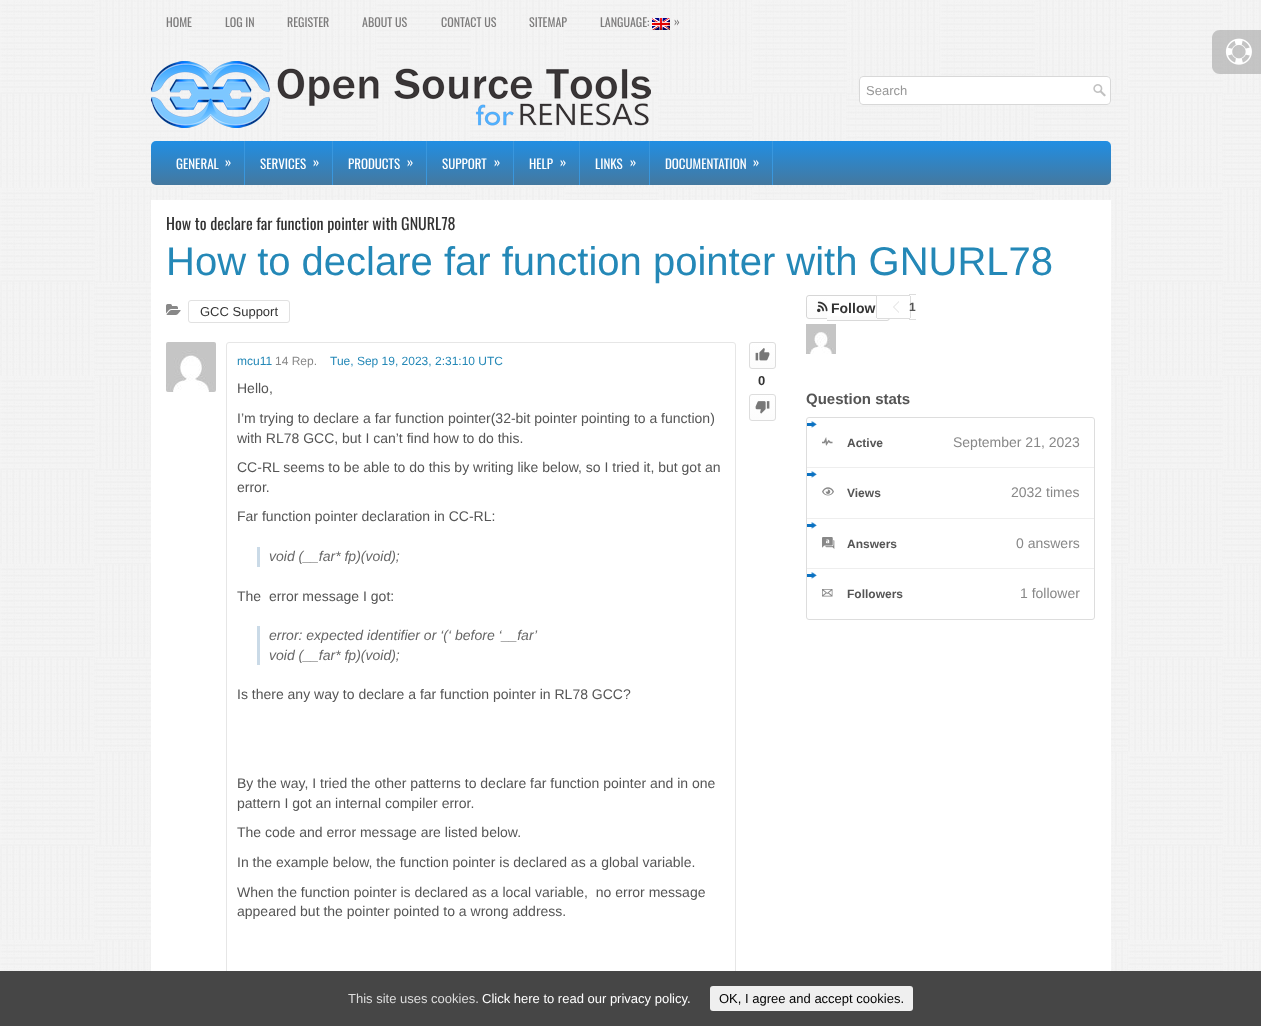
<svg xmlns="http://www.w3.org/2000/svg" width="1261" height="1026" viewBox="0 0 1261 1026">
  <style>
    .t1 { font: 12px Oswald; fill: #7c7b7b; }
    .t2 { font: 13px Liberation Sans; fill: #979797; }
    .t3 { font: 13px Oswald; fill: #fff; }
    .t4 { font: 16px Oswald; fill: #333; }
    .t5 { font: 40px Liberation Sans; fill: #2488b7; }
    .t6 { font: 13px Liberation Sans; fill: #333; }
    .t7 { font: 12px Liberation Sans; fill: #2488b7; }
    .t8 { font: 12px Liberation Sans; fill: #888; }
    .t9 { font: 14px Liberation Sans; fill: #555; }
    .t10 { font: italic 14px Liberation Sans; fill: #666; }
    .t11 { font: bold 13px Liberation Sans; fill: #333; }
    .t12 { font: bold 14px Liberation Sans; fill: #333; }
    .t13 { font: bold 12px Liberation Sans; fill: #555; }
    .t14 { font: bold 15px Liberation Sans; fill: #555; }
    .t15 { font: 14px Liberation Sans; fill: #888; }
    .t16 { font: 13px Liberation Sans; fill: #ddd; }
    .t17 { font: 13px Liberation Sans; fill: #fff; }
    .t18 { font: 13px Liberation Sans; fill: #000; }
  </style>
  <defs>
    <linearGradient id="g1" gradientUnits="userSpaceOnUse" x1="631" y1="141" x2="631" y2="185"><stop offset="0" stop-color="#218ee3"/><stop offset="1" stop-color="#44789f"/></linearGradient>
    <clipPath id="clip1"><rect x="749" y="342" width="27" height="27" rx="3"/></clipPath>
    <linearGradient id="g2" gradientUnits="userSpaceOnUse" x1="763" y1="343" x2="763" y2="368"><stop offset="0" stop-color="#fff"/><stop offset="1" stop-color="#fcfcfc"/></linearGradient>
    <clipPath id="clip2"><rect x="749" y="394" width="27" height="27" rx="3"/></clipPath>
    <linearGradient id="g3" gradientUnits="userSpaceOnUse" x1="763" y1="395" x2="763" y2="420"><stop offset="0" stop-color="#fff"/><stop offset="1" stop-color="#fcfcfc"/></linearGradient>
    <clipPath id="clip3"><path d="M809 295H827V319H809C807.5 319 806 317.5 806 316V298C806 296.5 807.5 295 809 295Z"/></clipPath>
    <linearGradient id="g4" gradientUnits="userSpaceOnUse" x1="817" y1="296" x2="817" y2="318"><stop offset="0" stop-color="#fff"/><stop offset="1" stop-color="#fcfcfc"/></linearGradient>
    <linearGradient id="g5" gradientUnits="userSpaceOnUse" x1="817" y1="274" x2="817" y2="296"><stop offset="0" stop-color="#fff"/><stop offset="1" stop-color="#fcfcfc"/></linearGradient>
    <linearGradient id="g6" gradientUnits="userSpaceOnUse" x1="882" y1="272" x2="882" y2="296"><stop offset="0" stop-color="#fff"/><stop offset="1" stop-color="#fcfcfc"/></linearGradient>
    <linearGradient id="g7" gradientUnits="userSpaceOnUse" x1="882" y1="296" x2="882" y2="320"><stop offset="0" stop-color="#fff"/><stop offset="1" stop-color="#fcfcfc"/></linearGradient>
    <linearGradient id="g8" gradientUnits="userSpaceOnUse" x1="829" y1="296" x2="829" y2="320"><stop offset="0" stop-color="#fff"/><stop offset="1" stop-color="#fcfcfc"/></linearGradient>
    <linearGradient id="g9" gradientUnits="userSpaceOnUse" x1="853" y1="296" x2="853" y2="320"><stop offset="0" stop-color="#fff"/><stop offset="1" stop-color="#fcfcfc"/></linearGradient>
  </defs>
  <rect width="100%" height="100%" fill="#fff"/>
  <image x="0" y="0" width="1261" height="971" href="images/1.png"/>
  <text x="166" y="27" class="t1">HOME</text>
  <text x="225" y="27" class="t1">LOG IN</text>
  <text x="287" y="27" class="t1">REGISTER</text>
  <text x="362" y="27" class="t1">ABOUT US</text>
  <text x="441" y="27" class="t1">CONTACT US</text>
  <text x="529" y="27" class="t1">SITEMAP</text>
  <text x="600" y="27" class="t1">LANGUAGE:</text>
  <image x="652" y="18" width="18" height="12" href="images/2.png"/>
  <text x="674" y="26" class="t1">»</text>
  <image x="151" y="61" width="500" height="67" href="images/3.png"/>
  <rect x="859" y="76" width="252" height="29" rx="4" fill="#fff"/>
  <image x="1093" y="84" width="13" height="13" href="images/4.png"/>
  <rect x="859.5" y="76.5" width="251" height="28" rx="3.5" fill="none" stroke="#d8d8d8"/>
  <text x="866" y="95" class="t2">Search</text>
  <rect x="151" y="141" width="960" height="44" rx="5" fill="url(#g1)"/>
  <rect x="244" y="141" width="1" height="44" fill="#3997de"/>
  <text x="176" y="169" class="t3">GENERAL</text>
  <text x="225" y="167" class="t3">»</text>
  <rect x="332" y="141" width="1" height="44" fill="#3997de"/>
  <text x="260" y="169" class="t3">SERVICES</text>
  <text x="313" y="167" class="t3">»</text>
  <rect x="426" y="141" width="1" height="44" fill="#3997de"/>
  <text x="348" y="169" class="t3">PRODUCTS</text>
  <text x="407" y="167" class="t3">»</text>
  <rect x="513" y="141" width="1" height="44" fill="#3997de"/>
  <text x="442" y="169" class="t3">SUPPORT</text>
  <text x="494" y="167" class="t3">»</text>
  <rect x="579" y="141" width="1" height="44" fill="#3997de"/>
  <text x="529" y="169" class="t3">HELP</text>
  <text x="560" y="167" class="t3">»</text>
  <rect x="649" y="141" width="1" height="44" fill="#3997de"/>
  <text x="595" y="169" class="t3">LINKS</text>
  <text x="630" y="167" class="t3">»</text>
  <rect x="772" y="141" width="1" height="44" fill="#3997de"/>
  <text x="665" y="169" class="t3">DOCUMENTATION</text>
  <text x="753" y="167" class="t3">»</text>
  <rect x="151" y="200" width="960" height="771" fill="#fff"/>
  <text x="166" y="230" class="t4">How to declare far function pointer with GNURL78</text>
  <text x="166" y="275" class="t5">How to declare far function pointer with GNURL78</text>
  <image x="166" y="304" width="15" height="11" href="images/5.png"/>
  <rect x="188.5" y="300.5" width="101" height="22" rx="2.5" fill="none" stroke="#e1e1e1"/>
  <text x="200" y="316" class="t6">GCC Support</text>
  <image x="166" y="342" width="50" height="50" href="images/6.png"/>
  <rect x="226.5" y="342.5" width="509" height="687" rx="2.5" fill="none" stroke="#e6e6e6"/>
  <text x="237" y="365" class="t7">mcu11</text>
  <text x="275" y="365" class="t8">14 Rep.</text>
  <text x="330" y="365" class="t7">Tue, Sep 19, 2023, 2:31:10 UTC</text>
  <text x="237" y="393" class="t9">Hello,</text>
  <text x="237" y="423" class="t9">I’m trying to declare a far function pointer(32-bit pointer pointing to a function)</text>
  <text x="237" y="443" class="t9">with RL78 GCC, but I can’t find how to do this.</text>
  <text x="237" y="472" class="t9">CC-RL seems to be able to do this by writing like below, so I tried it, but got an</text>
  <text x="237" y="492" class="t9">error.</text>
  <text x="237" y="521" class="t9">Far function pointer declaration in CC-RL:</text>
  <rect x="257" y="547" width="3" height="20" fill="#cadae7"/>
  <text x="269" y="561" class="t10">void (__far* fp)(void);</text>
  <text x="237" y="601" class="t9" xml:space="preserve">The  error message I got:</text>
  <rect x="257" y="626" width="3" height="39" fill="#cadae7"/>
  <text x="269" y="640" class="t10">error: expected identifier or ‘(‘ before ‘__far’</text>
  <text x="269" y="660" class="t10">void (__far* fp)(void);</text>
  <text x="237" y="699" class="t9">Is there any way to declare a far function pointer in RL78 GCC?</text>
  <text x="237" y="788" class="t9">By the way, I tried the other patterns to declare far function pointer and in one</text>
  <text x="237" y="808" class="t9">pattern I got an internal compiler error.</text>
  <text x="237" y="837" class="t9">The code and error message are listed below.</text>
  <text x="237" y="867" class="t9">In the example below, the function pointer is declared as a global variable.</text>
  <text x="237" y="897" class="t9" xml:space="preserve">When the function pointer is declared as a local variable,  no error message</text>
  <text x="237" y="916" class="t9">appeared but the pointer pointed to a wrong address.</text>
  <g clip-path="url(#clip1)">
    <rect x="749" y="343" width="27" height="25" fill="url(#g2)"/>
  </g>
  <rect x="749.5" y="342.5" width="26" height="26" rx="2.5" fill="none" stroke="#ddd"/>
  <image x="755" y="348" width="15" height="13" href="images/7.png"/>
  <text x="758" y="385" class="t11">0</text>
  <g clip-path="url(#clip2)">
    <rect x="749" y="395" width="27" height="25" fill="url(#g3)"/>
  </g>
  <rect x="749.5" y="394.5" width="26" height="26" rx="2.5" fill="none" stroke="#ddd"/>
  <image x="755" y="401" width="15" height="13" href="images/8.png"/>
  <g clip-path="url(#clip3)">
    <rect x="806" y="296" width="21" height="22" fill="url(#g4)"/>
    <rect x="806" y="295" width="21" height="1" fill="url(#g5)"/>
  </g>
  <path d="M809 295H827V319H809C807.5 319 806 317.5 806 316V298C806 296.5 807.5 295 809 295ZM809 296H827V318H809C808 318 807 317 807 316V298C807 297 808 296 809 296Z" fill="#00000026" fill-rule="evenodd"/>
  <image x="817" y="301" width="11" height="12" href="images/9.png"/>
  <rect x="875" y="295" width="2" height="1" fill="url(#g6)"/>
  <rect x="875" y="316" width="15" height="4" fill="url(#g7)"/>
  <path d="M875 295H887C888.5 295 890 296.5 890 298V318C890 319.5 888.5 321 887 321H875ZM875 296H887C888 296 889 297 889 298V318C889 319 888 320 887 320H875Z" fill="#00000026" fill-rule="evenodd"/>
  <text x="831" y="313" class="t12">Follow</text>
  <rect x="827" y="316" width="4" height="4" fill="url(#g8)"/>
  <rect x="827" y="295" width="48" height="1" fill="#d6d6d6"/>
  <rect x="827" y="320" width="48" height="1" fill="#d9d9d9"/>
  <rect x="831" y="316" width="44" height="4" fill="url(#g9)"/>
  <path d="M878 295H899V319H878C877 319 876 318 876 317V297C876 296 877 295 878 295Z" fill="#fff"/>
  <rect x="877" y="295" width="33" height="1" fill="#ddd"/>
  <rect x="877" y="318" width="33" height="1" fill="#ddd"/>
  <rect x="876" y="296" width="1" height="22" fill="#ddd"/>
  <rect x="909" y="294" width="7" height="1" fill="#ddd"/>
  <rect x="909" y="319" width="7" height="1" fill="#ddd"/>
  <rect x="910" y="296" width="1" height="22" fill="#ddd"/>
  <path d="M899 301V313L893 307Z" fill="#ddd"/>
  <path d="M900 301V313L894 307Z" fill="#fff"/>
  <text x="909" y="311" class="t13">1</text>
  <image x="806" y="324" width="30" height="30" href="images/10.png"/>
  <text x="806" y="404" class="t14">Question stats</text>
  <rect x="806.5" y="417.5" width="288" height="202" rx="2.5" fill="none" stroke="#ddd"/>
  <image x="807" y="421" width="10" height="7" href="images/11.png"/>
  <rect x="807" y="467" width="287" height="1" fill="#eee"/>
  <image x="822" y="437" width="11" height="9" href="images/12.png"/>
  <text x="847" y="447" class="t13">Active</text>
  <text x="953" y="447" class="t15">September 21, 2023</text>
  <image x="807" y="471" width="10" height="7" href="images/11.png"/>
  <rect x="807" y="518" width="287" height="1" fill="#eee"/>
  <image x="822" y="487" width="12" height="9" href="images/13.png"/>
  <text x="847" y="497" class="t13">Views</text>
  <text x="1011" y="497" class="t15">2032 times</text>
  <image x="807" y="522" width="10" height="7" href="images/11.png"/>
  <rect x="807" y="568" width="287" height="1" fill="#eee"/>
  <image x="822" y="537" width="13" height="12" href="images/14.png"/>
  <text x="847" y="548" class="t13">Answers</text>
  <text x="1016" y="548" class="t15">0 answers</text>
  <image x="807" y="572" width="10" height="7" href="images/11.png"/>
  <image x="822" y="589" width="11" height="8" href="images/15.png"/>
  <text x="847" y="598" class="t13">Followers</text>
  <text x="1020" y="598" class="t15">1 follower</text>
  <path d="M1220 30H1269V74H1220C1215.5 74 1212 70.5 1212 66V38C1212 33.5 1215.5 30 1220 30Z" fill="#95959580"/>
  <image x="1225" y="38" width="27" height="27" href="images/16.png"/>
  <rect x="0" y="971" width="1261" height="55" fill="#464646"/>
  <text x="348" y="1003" class="t16">This site uses cookies.</text>
  <text x="482" y="1003" class="t17">Click here to read our privacy policy.</text>
  <rect x="710" y="986" width="203" height="25" rx="3" fill="#efefef"/>
  <text x="719" y="1003" class="t18">OK, I agree and accept cookies.</text>
</svg>
